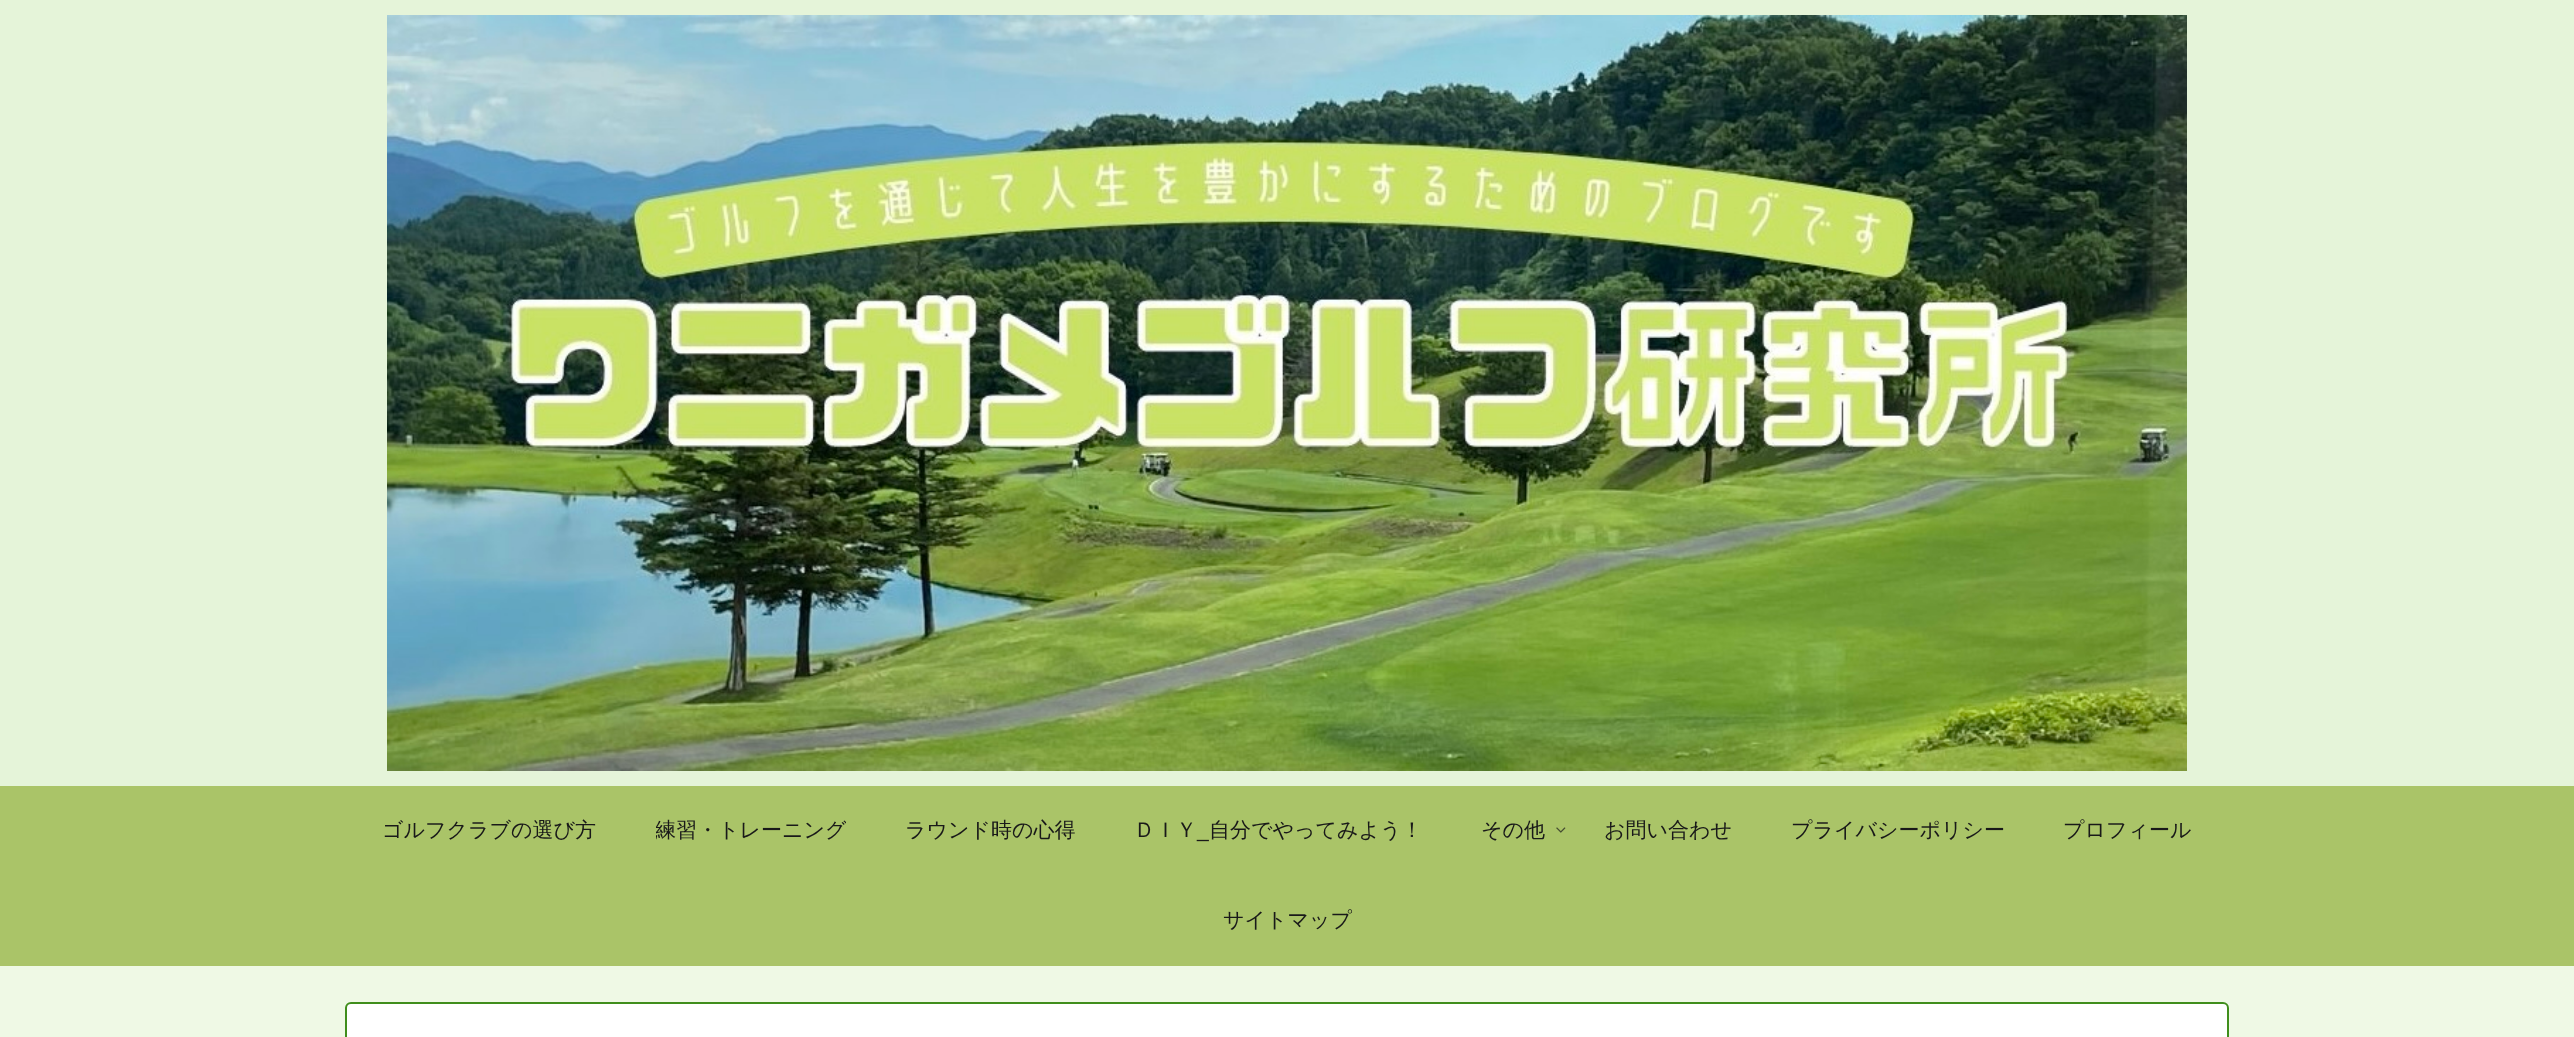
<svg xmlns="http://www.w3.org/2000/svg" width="2574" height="1037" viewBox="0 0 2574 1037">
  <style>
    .t1 { font: 500 21px WenQuanYi Zen Hei; fill: #191919; }
    .t2 { font: 21px Liberation Sans; fill: #191919; }
  </style>
  <defs>
    <clipPath id="clip1"><rect x="656" y="812" width="190" height="37"/></clipPath>
  </defs>
  <rect width="100%" height="100%" fill="#eff9e5"/>
  <rect x="0" y="0" width="2574" height="786" fill="#e5f4d9"/>
  <image x="387" y="15" width="1800" height="756" href="images/1.png"/>
  <rect x="0" y="786" width="2574" height="180" fill="#aac468"/>
  <text x="382" y="837" class="t1">ゴルフクラブの選び方</text>
  <g clip-path="url(#clip1)">
    <text x="655" y="837" class="t1">練習・トレーニング</text>
  </g>
  <text x="905" y="837" class="t1">ラウンド時の心得</text>
  <text x="1134" y="837" class="t1">ＤＩＹ</text>
  <text x="1209" y="837" class="t1">自分でやってみよう！</text>
  <text x="1197" y="837" class="t2">_</text>
  <text x="1481" y="837" class="t1">その他</text>
  <image x="1556" y="827" width="10" height="6" href="images/2.png"/>
  <text x="1604" y="837" class="t1">お問い合わせ</text>
  <text x="1791" y="837" class="t1">プライバシーポリシー</text>
  <text x="2063" y="837" class="t1">プロフィール</text>
  <text x="1223" y="927" class="t1">サイトマップ</text>
  <rect x="346" y="1003" width="1882" height="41" rx="5" fill="#fff" stroke="#408e1c" stroke-width="2"/>
</svg>
